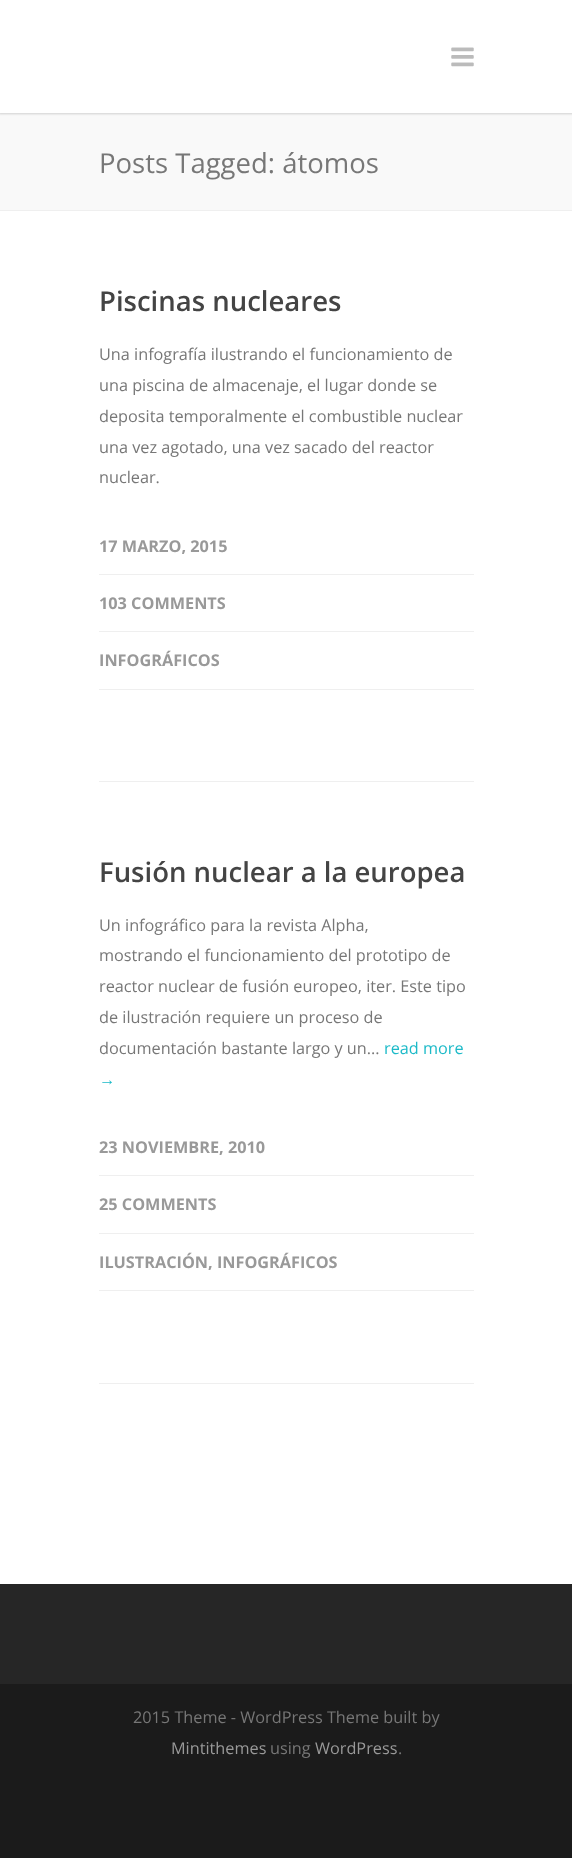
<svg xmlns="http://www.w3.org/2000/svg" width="572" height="1858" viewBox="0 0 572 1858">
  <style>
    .t1 { font: 27.5px Open Sans; fill: #777; }
    .t2 { font: 600 27.5px Open Sans; fill: #444; }
    .t3 { font: 16.25px Open Sans; fill: #777; }
    .t4 { font: bold 16.25px Open Sans; fill: #999; }
    .t5 { font: 16.25px Open Sans; fill: #1cbac8; }
    .t6 { font: 16.25px Liberation Sans; fill: #1cbac8; }
    .t7 { font: 16.25px Open Sans; fill: #999; }
  </style>
  <rect width="100%" height="100%" fill="#1b1b1b"/>
  <rect x="0" y="211" width="572" height="1373" fill="#fff"/>
  <rect x="0" y="113" width="572" height="97" fill="#f9f9f9"/>
  <rect x="-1" y="-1" width="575" height="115" fill="#00000029" filter="blur(1px)"/>
  <rect x="0" y="0" width="572" height="113" fill="#fff"/>
  <image x="451" y="47" width="23" height="20" href="images/1.png"/>
  <rect x="0" y="210" width="572" height="1" fill="#efefef"/>
  <text x="99" y="173" class="t1">Posts Tagged: átomos</text>
  <rect x="99" y="781" width="375" height="1" fill="#efefef"/>
  <text x="99" y="311" class="t2">Piscinas nucleares</text>
  <text x="99" y="360" class="t3">Una infografía ilustrando el funcionamiento de</text>
  <text x="99" y="391" class="t3">una piscina de almacenaje, el lugar donde se</text>
  <text x="99" y="422" class="t3">deposita temporalmente el combustible nuclear</text>
  <text x="99" y="453" class="t3">una vez agotado, una vez sacado del reactor</text>
  <text x="99" y="483" class="t3">nuclear.</text>
  <rect x="99" y="574" width="375" height="1" fill="#efefef"/>
  <text x="99" y="552" class="t4">17 MARZO, 2015</text>
  <rect x="99" y="631" width="375" height="1" fill="#efefef"/>
  <text x="99" y="609" class="t4">103 COMMENTS</text>
  <rect x="99" y="689" width="375" height="1" fill="#efefef"/>
  <text x="99" y="666" class="t4">INFOGRÁFICOS</text>
  <rect x="99" y="1383" width="375" height="1" fill="#efefef"/>
  <text x="99" y="882" class="t2">Fusión nuclear a la europea</text>
  <text x="99" y="931" class="t3">Un infográfico para la revista Alpha,</text>
  <text x="99" y="961" class="t3">mostrando el funcionamiento del prototipo de</text>
  <text x="99" y="992" class="t3">reactor nuclear de fusión europeo, iter. Este tipo</text>
  <text x="99" y="1023" class="t3">de ilustración requiere un proceso de</text>
  <text x="99" y="1054" class="t3">documentación bastante largo y un...</text>
  <text x="384" y="1054" class="t5">read more</text>
  <text x="99" y="1085" class="t6">→</text>
  <rect x="99" y="1175" width="375" height="1" fill="#efefef"/>
  <text x="99" y="1153" class="t4">23 NOVIEMBRE, 2010</text>
  <rect x="99" y="1233" width="375" height="1" fill="#efefef"/>
  <text x="99" y="1210" class="t4">25 COMMENTS</text>
  <rect x="99" y="1290" width="375" height="1" fill="#efefef"/>
  <text x="99" y="1268" class="t4">ILUSTRACIÓN, INFOGRÁFICOS</text>
  <rect x="0" y="1584" width="572" height="100" fill="#262626"/>
  <text x="133" y="1723" class="t3">2015 Theme - WordPress Theme built by</text>
  <text x="171" y="1754" class="t7">Mintithemes</text>
  <text x="270" y="1754" class="t3">using</text>
  <text x="315" y="1754" class="t7">WordPress</text>
  <text x="398" y="1754" class="t3">.</text>
</svg>
